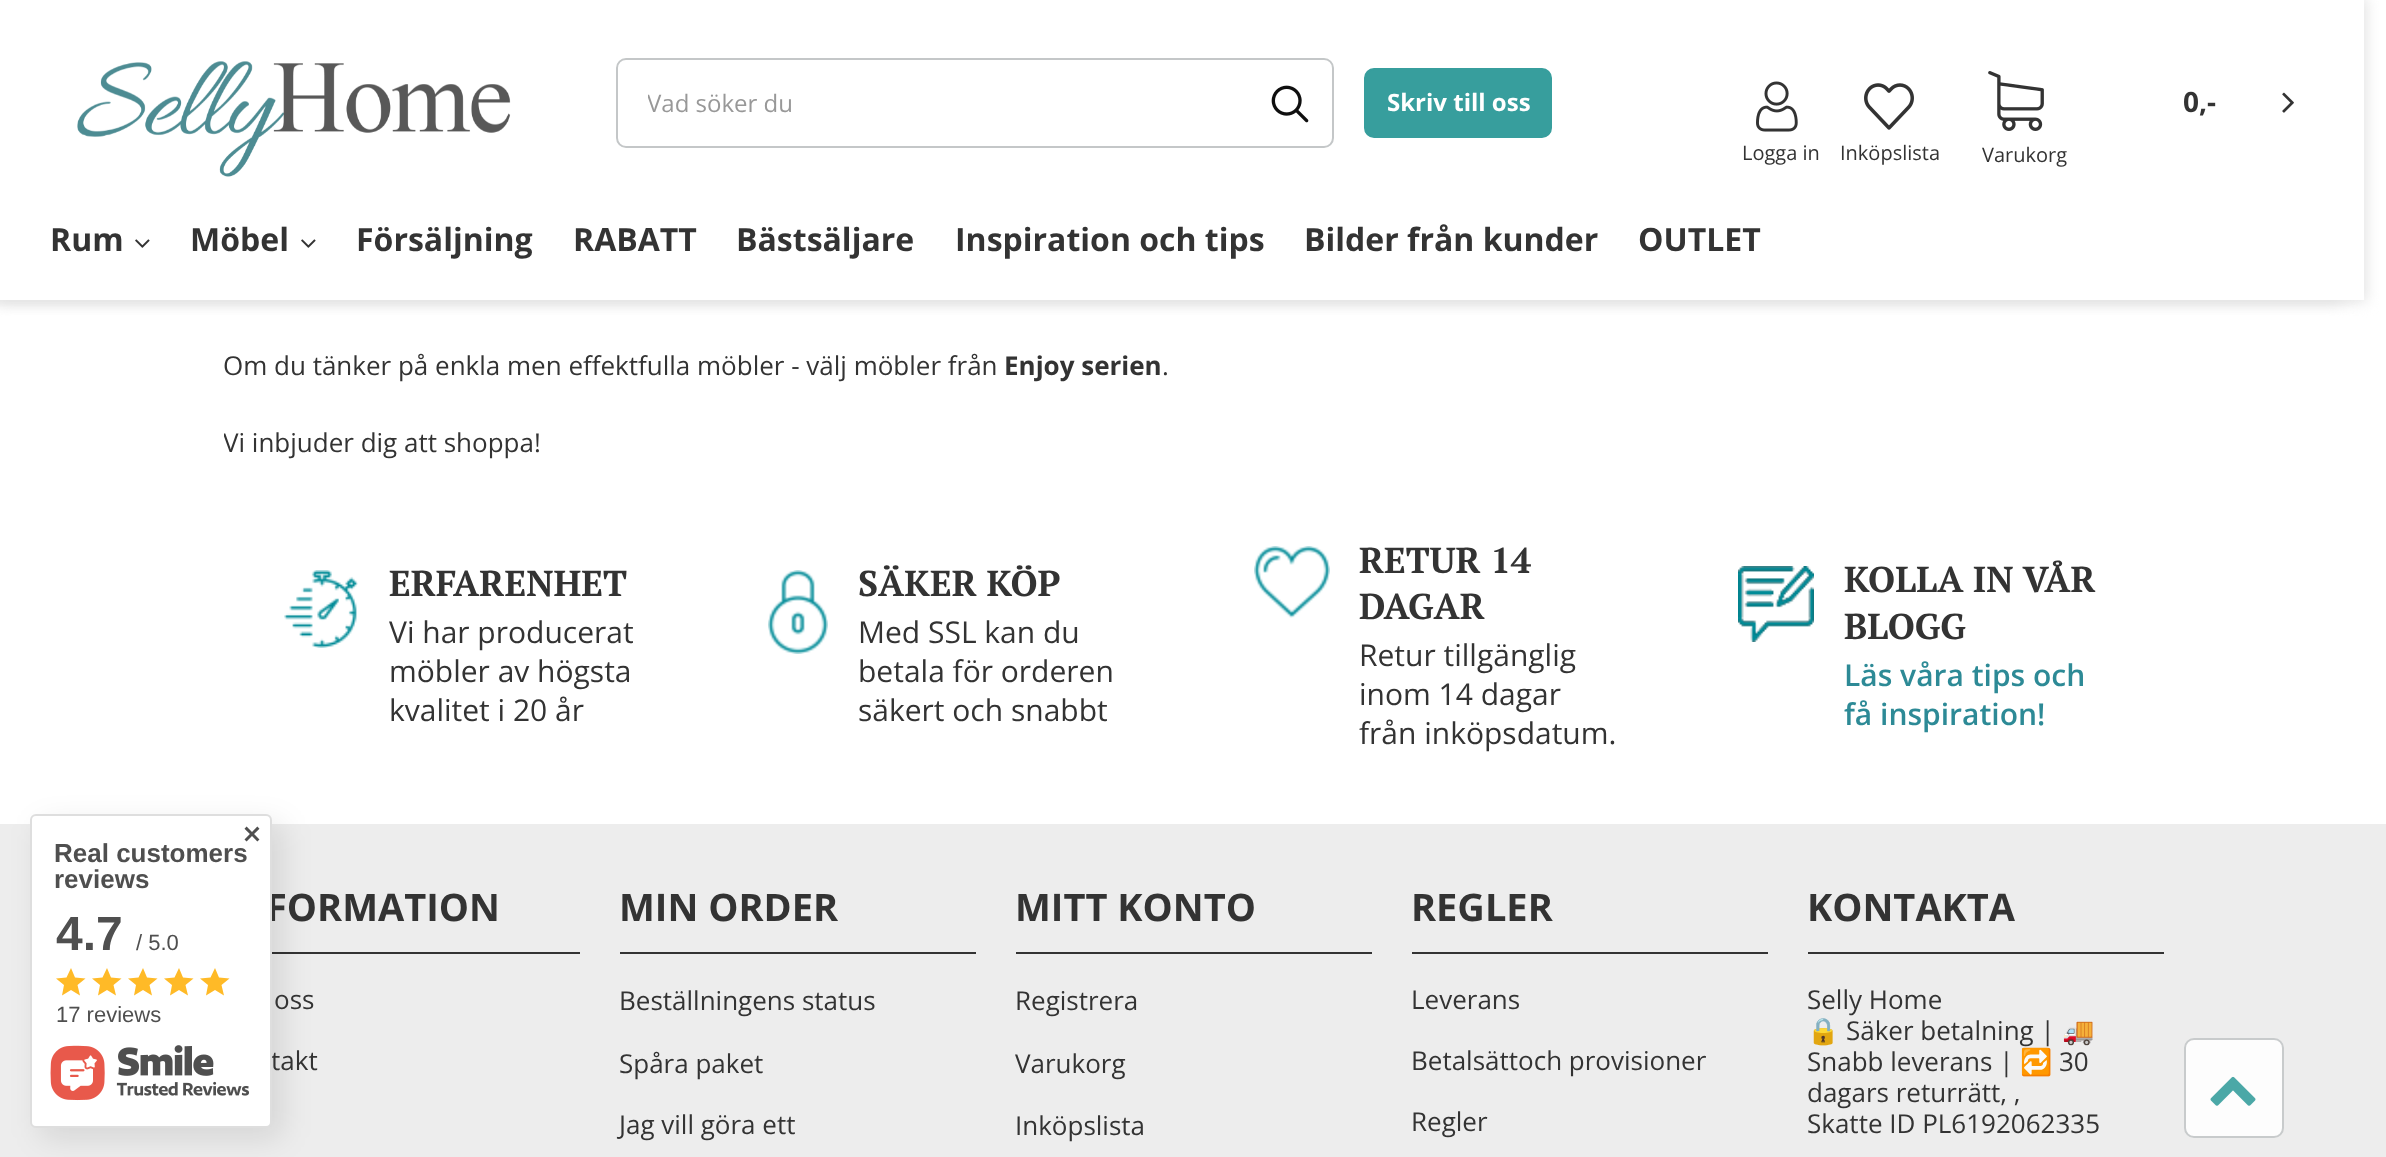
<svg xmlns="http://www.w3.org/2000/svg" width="2386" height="1157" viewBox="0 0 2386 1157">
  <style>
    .t1 { font: 24px Open Sans; fill: #989898; }
    .t2 { font: bold 24px Open Sans; fill: #fff; }
    .t3 { font: 20px Open Sans; fill: #333; }
    .t4 { font: bold 28px Open Sans; fill: #333; }
    .t5 { font: bold 32px Open Sans; fill: #333; }
    .t6 { font: 26px Open Sans; fill: #333; }
    .t7 { font: bold 26px Open Sans; fill: #333; }
    .t8 { font: bold 36px PT Serif; fill: #333; }
    .t9 { font: 30px Open Sans; fill: #333; }
    .t10 { font: 600 30px Open Sans; fill: #2d8a96; }
    .t11 { font: bold 38px Open Sans; fill: #333; }
    .t12 { font: bold 26px Liberation Sans; fill: #4f4f4f; }
    .t13 { font: bold 48px Liberation Sans; fill: #4f4f4f; }
    .t14 { font: 22px Liberation Sans; fill: #4f4f4f; }
    .t15 { font: 26px Noto Color Emoji; fill: #333; }
  </style>
  <defs>
    <clipPath id="clip1"><rect x="648" y="86" width="534" height="34"/></clipPath>
    <clipPath id="clip2"><rect x="224" y="0" width="1940" height="496"/></clipPath>
  </defs>
  <rect width="100%" height="100%" fill="#fff"/>
  <rect x="-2" y="-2" width="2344" height="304" fill="#e1e1e1" filter="blur(7px)"/>
  <rect x="-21" y="-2" width="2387" height="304" fill="#e1e1e1" filter="blur(7px)"/>
  <rect x="0" y="0" width="2364" height="300" fill="#fff"/>
  <image x="77" y="61" width="434" height="116" href="images/1.png"/>
  <rect x="617" y="59" width="716" height="88" rx="9" fill="none" stroke="#c4c7c8" stroke-width="2"/>
  <g clip-path="url(#clip1)">
    <text x="647" y="112" class="t1">Vad söker du</text>
  </g>
  <image x="1271" y="85" width="38" height="38" href="images/2.png"/>
  <rect x="1365" y="69" width="186" height="68" rx="9" fill="#379e9d" stroke="#379e9d" stroke-width="2"/>
  <text x="1387" y="111" class="t2">Skriv till oss</text>
  <image x="1756" y="81" width="42" height="51" href="images/3.png"/>
  <text x="1742" y="160" class="t3">Logga in</text>
  <image x="1864" y="83" width="50" height="47" href="images/4.png"/>
  <text x="1840" y="160" class="t3">Inköpslista</text>
  <text x="2183" y="112" class="t4">0,-</text>
  <image x="2282" y="92" width="12" height="21" href="images/5.png"/>
  <image x="1988" y="71" width="56" height="60" href="images/6.png"/>
  <text x="1982" y="162" class="t3">Varukorg</text>
  <text x="50" y="251" class="t5">Rum</text>
  <image x="135" y="239" width="15" height="9" href="images/7.png"/>
  <text x="190" y="251" class="t5">Möbel</text>
  <image x="301" y="239" width="15" height="9" href="images/7.png"/>
  <text x="356" y="251" class="t5">Försäljning</text>
  <text x="573" y="251" class="t5">RABATT</text>
  <text x="736" y="251" class="t5">Bästsäljare</text>
  <text x="955" y="251" class="t5">Inspiration och tips</text>
  <text x="1304" y="251" class="t5">Bilder från kunder</text>
  <text x="1638" y="251" class="t5">OUTLET</text>
  <text x="223" y="375" class="t6">Om du tänker på enkla men effektfulla möbler - välj möbler från</text>
  <text x="1004" y="375" class="t7">Enjoy serien</text>
  <text x="1162" y="375" class="t6">.</text>
  <g clip-path="url(#clip2)">
    <text x="223" y="452" class="t6">Vi inbjuder dig att shoppa!</text>
  </g>
  <image x="284" y="570" width="74" height="78" href="images/8.png"/>
  <text x="389" y="596" class="t8">ERFARENHET</text>
  <text x="389" y="643" class="t9">Vi har producerat</text>
  <text x="389" y="682" class="t9">möbler av högsta</text>
  <text x="389" y="721" class="t9">kvalitet i 20 år</text>
  <image x="768" y="570" width="60" height="84" href="images/9.png"/>
  <text x="858" y="596" class="t8">SÄKER KÖP</text>
  <text x="858" y="643" class="t9">Med SSL kan du</text>
  <text x="858" y="682" class="t9">betala för orderen</text>
  <text x="858" y="721" class="t9">säkert och snabbt</text>
  <image x="1254" y="546" width="76" height="72" href="images/10.png"/>
  <text x="1359" y="573" class="t8">RETUR 14</text>
  <text x="1359" y="619" class="t8">DAGAR</text>
  <text x="1359" y="666" class="t9">Retur tillgänglig</text>
  <text x="1359" y="705" class="t9">inom 14 dagar</text>
  <text x="1359" y="744" class="t9">från inköpsdatum.</text>
  <image x="1738" y="566" width="76" height="76" href="images/11.png"/>
  <text x="1844" y="592" class="t8">KOLLA IN VÅR</text>
  <text x="1844" y="639" class="t8">BLOGG</text>
  <text x="1844" y="686" class="t10">Läs våra tips och</text>
  <text x="1844" y="725" class="t10">få inspiration!</text>
  <rect x="0" y="824" width="2386" height="333" fill="#ededed"/>
  <rect x="272" y="952" width="308" height="2" fill="#333"/>
  <rect x="40" y="824" width="242" height="314" rx="6" fill="#0000001a" filter="blur(15px)"/>
  <text x="266" y="921" class="t11">FORMATION</text>
  <text x="271" y="1070" class="t6">takt</text>
  <rect x="31" y="815" width="240" height="312" rx="5" fill="#fff" stroke="#dedede" stroke-width="2"/>
  <image x="244" y="826" width="16" height="16" href="images/12.png"/>
  <text x="54" y="862" class="t12">Real customers</text>
  <text x="54" y="888" class="t12">reviews</text>
  <text x="56" y="950" class="t13">4.7</text>
  <text x="136" y="950" class="t14">/ 5.0</text>
  <path d="M62 995.5L64 985L56 978.5L66.5 977.5L71 968L75 977.5L85.5 978.5L77.5 985L80 995.5L71 990Z" fill="#ffba27"/>
  <path d="M98 995.5L100 985L92 978.5L102.5 977.5L107 968L111 977.5L121.5 978.5L113.5 985L116 995.5L107 990Z" fill="#ffba27"/>
  <path d="M134 995.5L136 985L128 978.5L138.5 977.5L143 968L147 977.5L157.5 978.5L149.5 985L152 995.5L143 990Z" fill="#ffba27"/>
  <path d="M170 995.5L172 985L164 978.5L174.5 977.5L179 968L183 977.5L193.5 978.5L185.5 985L188 995.5L179 990Z" fill="#ffba27"/>
  <path d="M206 995.5L208 985L200 978.5L210.5 977.5L215 968L219 977.5L229.5 978.5L221.5 985L224 995.5L215 990Z" fill="#ffba27"/>
  <text x="56" y="1022" class="t14">17 reviews</text>
  <image x="50" y="1045" width="200" height="56" href="images/13.png"/>
  <text x="274" y="1009" class="t6">oss</text>
  <rect x="620" y="952" width="356" height="2" fill="#333"/>
  <text x="619" y="921" class="t11">MIN ORDER</text>
  <text x="619" y="1010" class="t6">Beställningens status</text>
  <text x="619" y="1073" class="t6">Spåra paket</text>
  <text x="619" y="1134" class="t6">Jag vill göra ett</text>
  <rect x="1016" y="952" width="356" height="2" fill="#333"/>
  <text x="1015" y="921" class="t11">MITT KONTO</text>
  <text x="1015" y="1010" class="t6">Registrera</text>
  <text x="1015" y="1073" class="t6">Varukorg</text>
  <text x="1015" y="1135" class="t6">Inköpslista</text>
  <rect x="1412" y="952" width="356" height="2" fill="#333"/>
  <text x="1411" y="921" class="t11">REGLER</text>
  <text x="1411" y="1009" class="t6">Leverans</text>
  <text x="1411" y="1070" class="t6">Betalsättoch provisioner</text>
  <text x="1411" y="1131" class="t6">Regler</text>
  <rect x="1808" y="952" width="356" height="2" fill="#333"/>
  <text x="1807" y="921" class="t11">KONTAKTA</text>
  <text x="1807" y="1009" class="t6">Selly Home</text>
  <text x="1807" y="1040" class="t15">🔒</text>
  <text x="1846" y="1040" class="t6">Säker betalning |</text>
  <text x="2062" y="1040" class="t15">🚚</text>
  <text x="1807" y="1071" class="t6">Snabb leverans |</text>
  <text x="2020" y="1071" class="t15">🔁</text>
  <text x="2059" y="1071" class="t6">30</text>
  <text x="1807" y="1102" class="t6">dagars returrätt, ,</text>
  <text x="1807" y="1133" class="t6">Skatte ID PL6192062335</text>
  <rect x="2185" y="1039" width="98" height="98" rx="9" fill="#fdfdfd" stroke="#c8cbcc" stroke-width="2"/>
  <image x="2210" y="1076" width="46" height="30" href="images/14.png"/>
</svg>
